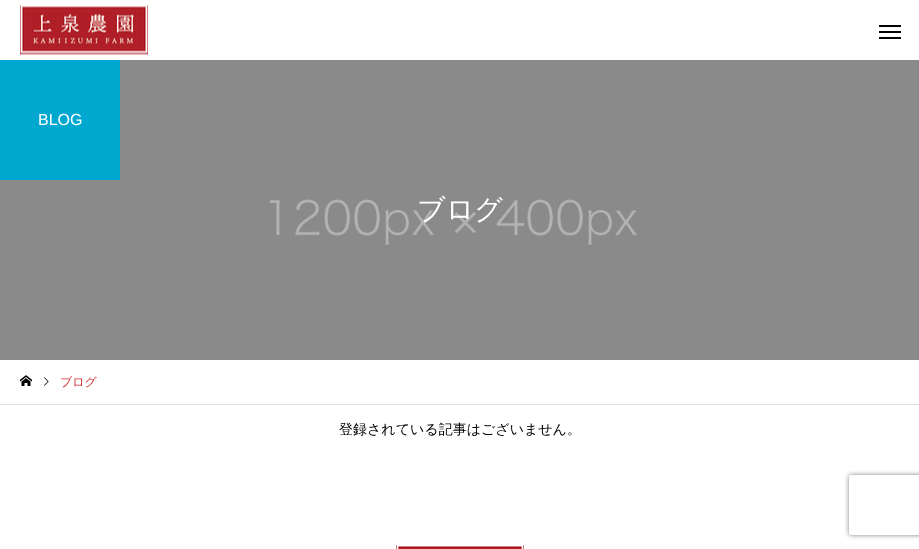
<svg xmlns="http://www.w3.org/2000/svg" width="919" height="549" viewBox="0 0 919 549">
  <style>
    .t1 { font: 16px Liberation Sans; fill: #fff; }
    .t2 { font: 500 28px WenQuanYi Zen Hei; fill: #fff; }
    .t3 { font: 500 12px WenQuanYi Zen Hei; fill: #d32d34; }
    .t4 { font: 500 14px WenQuanYi Zen Hei; fill: #000; }
  </style>
  <defs>
    <clipPath id="clip1"><path d="M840 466H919V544H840ZM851 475H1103C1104 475 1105 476 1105 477V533C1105 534 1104 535 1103 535H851C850 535 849 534 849 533V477C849 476 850 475 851 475Z" clip-rule="evenodd"/></clipPath>
  </defs>
  <rect width="100%" height="100%" fill="#fff"/>
  <image x="20" y="5" width="128" height="50" href="images/1.png"/>
  <rect x="879" y="25" width="22" height="2" fill="#000"/>
  <rect x="879" y="31" width="22" height="2" fill="#000"/>
  <rect x="879" y="37" width="22" height="2" fill="#000"/>
  <image x="0" y="60" width="919" height="300" href="images/2.png"/>
  <rect x="0" y="60" width="120" height="120" fill="#00a7ce"/>
  <text x="38" y="125" class="t1">BLOG</text>
  <text x="417" y="219" class="t2">ブログ</text>
  <rect x="0" y="404" width="919" height="1" fill="#ddd"/>
  <image x="20" y="375" width="12" height="11" href="images/3.png"/>
  <image x="44" y="377" width="5" height="9" href="images/4.png"/>
  <text x="60" y="386" class="t3">ブログ</text>
  <text x="339" y="434" class="t4">登録されている記事はございません。</text>
  <image x="396" y="545" width="128" height="4" href="images/5.png"/>
  <g clip-path="url(#clip1)">
    <rect x="849" y="475" width="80" height="60" rx="2" fill="#808080" filter="blur(2.5px)"/>
  </g>
</svg>
